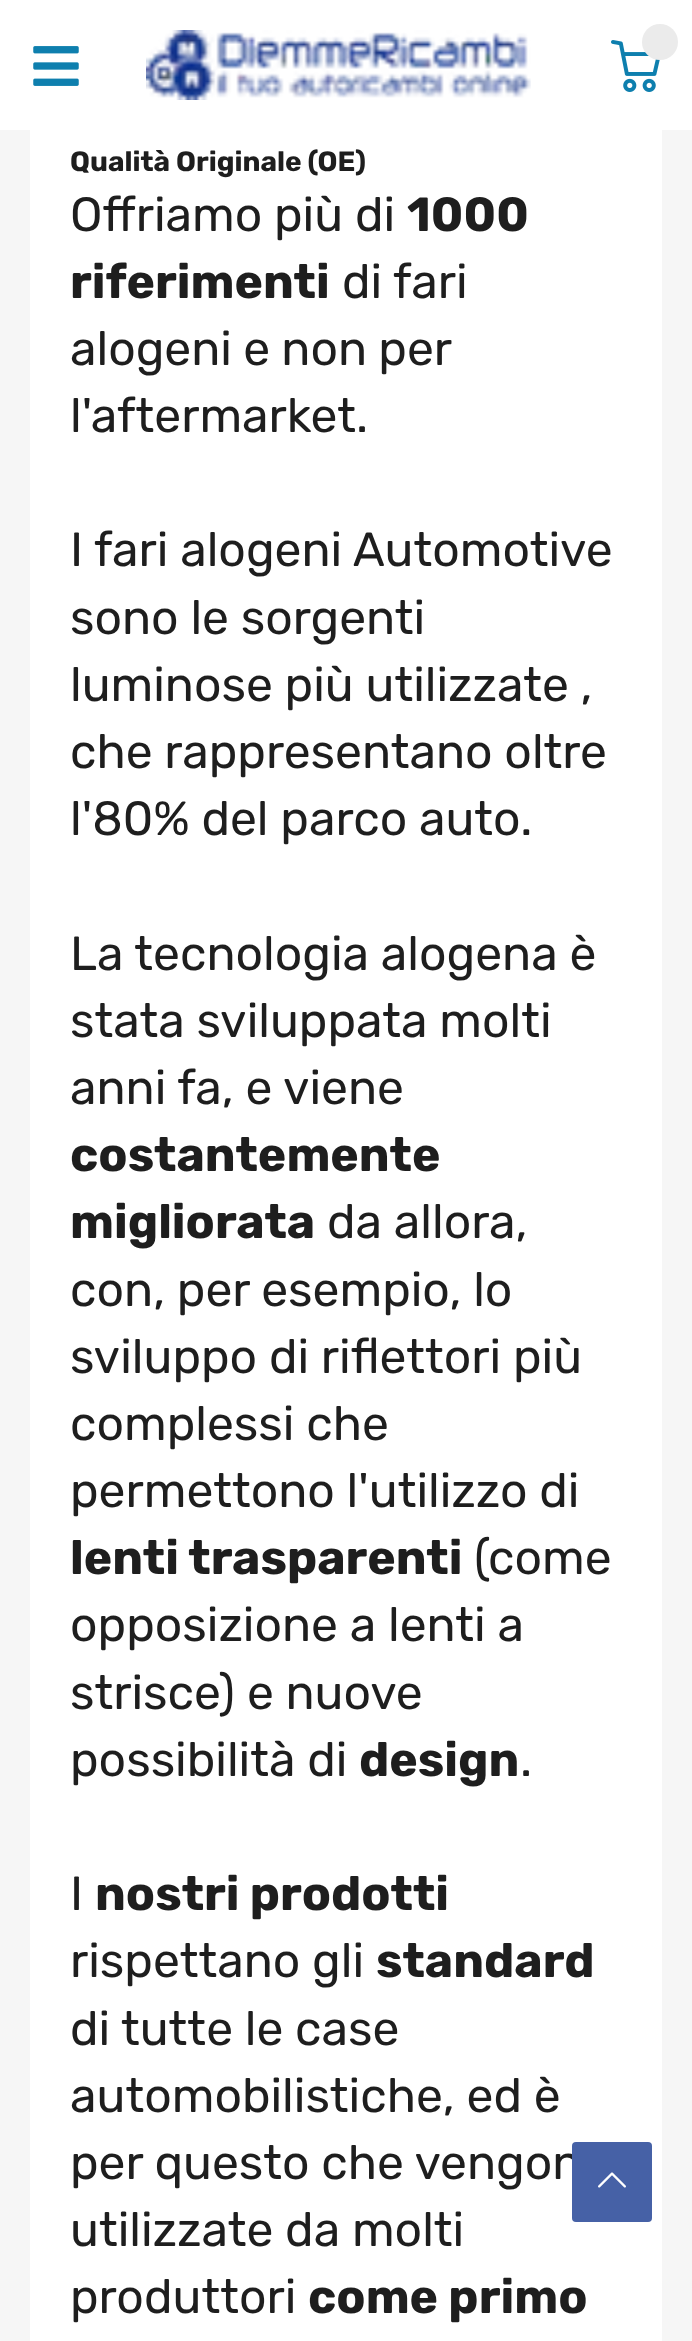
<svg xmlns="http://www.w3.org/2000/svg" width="692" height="2341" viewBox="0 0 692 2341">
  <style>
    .t1 { font: bold 28px Rubik; fill: #1e1e1e; }
    .t2 { font: 48px Rubik; fill: #1e1e1e; }
    .t3 { font: bold 48px Rubik; fill: #1e1e1e; }
  </style>
  <rect width="100%" height="100%" fill="#f6f6f6"/>
  <rect x="0" y="0" width="692" height="130" fill="#fff"/>
  <image x="33" y="46" width="46" height="40" href="images/1.png"/>
  <image x="146" y="30" width="385" height="70" href="images/2.png"/>
  <image x="611" y="40" width="49" height="52" href="images/3.png"/>
  <circle cx="660" cy="42" r="18" fill="#ebebeb"/>
  <rect x="30" y="130" width="632" height="2211" fill="#fff"/>
  <text x="70" y="171" class="t1">Qualità Originale (OE)</text>
  <text x="70" y="231" class="t2">Offriamo più di</text>
  <text x="407" y="231" class="t3">1000</text>
  <text x="70" y="298" class="t3">riferimenti</text>
  <text x="342" y="298" class="t2">di fari</text>
  <text x="70" y="365" word-spacing="-0.5" class="t2">alogeni e non per</text>
  <text x="70" y="432" class="t2">l'aftermarket.</text>
  <text x="70" y="566" class="t2">I fari alogeni Automotive</text>
  <text x="70" y="634" class="t2">sono le sorgenti</text>
  <text x="70" y="701" class="t2">luminose più utilizzate ,</text>
  <text x="70" y="768" class="t2">che rappresentano oltre</text>
  <text x="70" y="835" class="t2">l'80% del parco auto.</text>
  <text x="70" y="970" class="t2">La tecnologia alogena è</text>
  <text x="70" y="1037" class="t2">stata sviluppata molti</text>
  <text x="70" y="1104" class="t2">anni fa, e viene</text>
  <text x="70" y="1171" class="t3">costantemente</text>
  <text x="70" y="1238" class="t3">migliorata</text>
  <text x="327" y="1238" class="t2">da allora,</text>
  <text x="70" y="1306" class="t2">con, per esempio, lo</text>
  <text x="70" y="1373" class="t2">sviluppo di riflettori più</text>
  <text x="70" y="1440" class="t2">complessi che</text>
  <text x="70" y="1507" class="t2">permettono l'utilizzo di</text>
  <text x="70" y="1574" class="t3">lenti trasparenti</text>
  <text x="474" y="1574" class="t2">(come</text>
  <text x="70" y="1641" class="t2">opposizione a lenti a</text>
  <text x="70" y="1709" class="t2">strisce) e nuove</text>
  <text x="70" y="1776" class="t2">possibilità di</text>
  <text x="359" y="1776" class="t3">design</text>
  <text x="520" y="1776" class="t2">.</text>
  <text x="70" y="1910" class="t2">I</text>
  <text x="95" y="1910" class="t3">nostri prodotti</text>
  <text x="70" y="1977" class="t2">rispettano gli</text>
  <text x="376" y="1977" class="t3">standard</text>
  <text x="70" y="2045" class="t2">di tutte le case</text>
  <text x="70" y="2112" class="t2">automobilistiche, ed è</text>
  <text x="70" y="2179" class="t2">per questo che vengon</text>
  <text x="70" y="2246" class="t2">utilizzate da molti</text>
  <text x="70" y="2313" class="t2">produttori</text>
  <text x="308" y="2313" class="t3">come primo</text>
  <rect x="572" y="2142" width="80" height="80" rx="4" fill="#4661a6"/>
  <image x="598" y="2172" width="28" height="16" href="images/4.png"/>
</svg>
